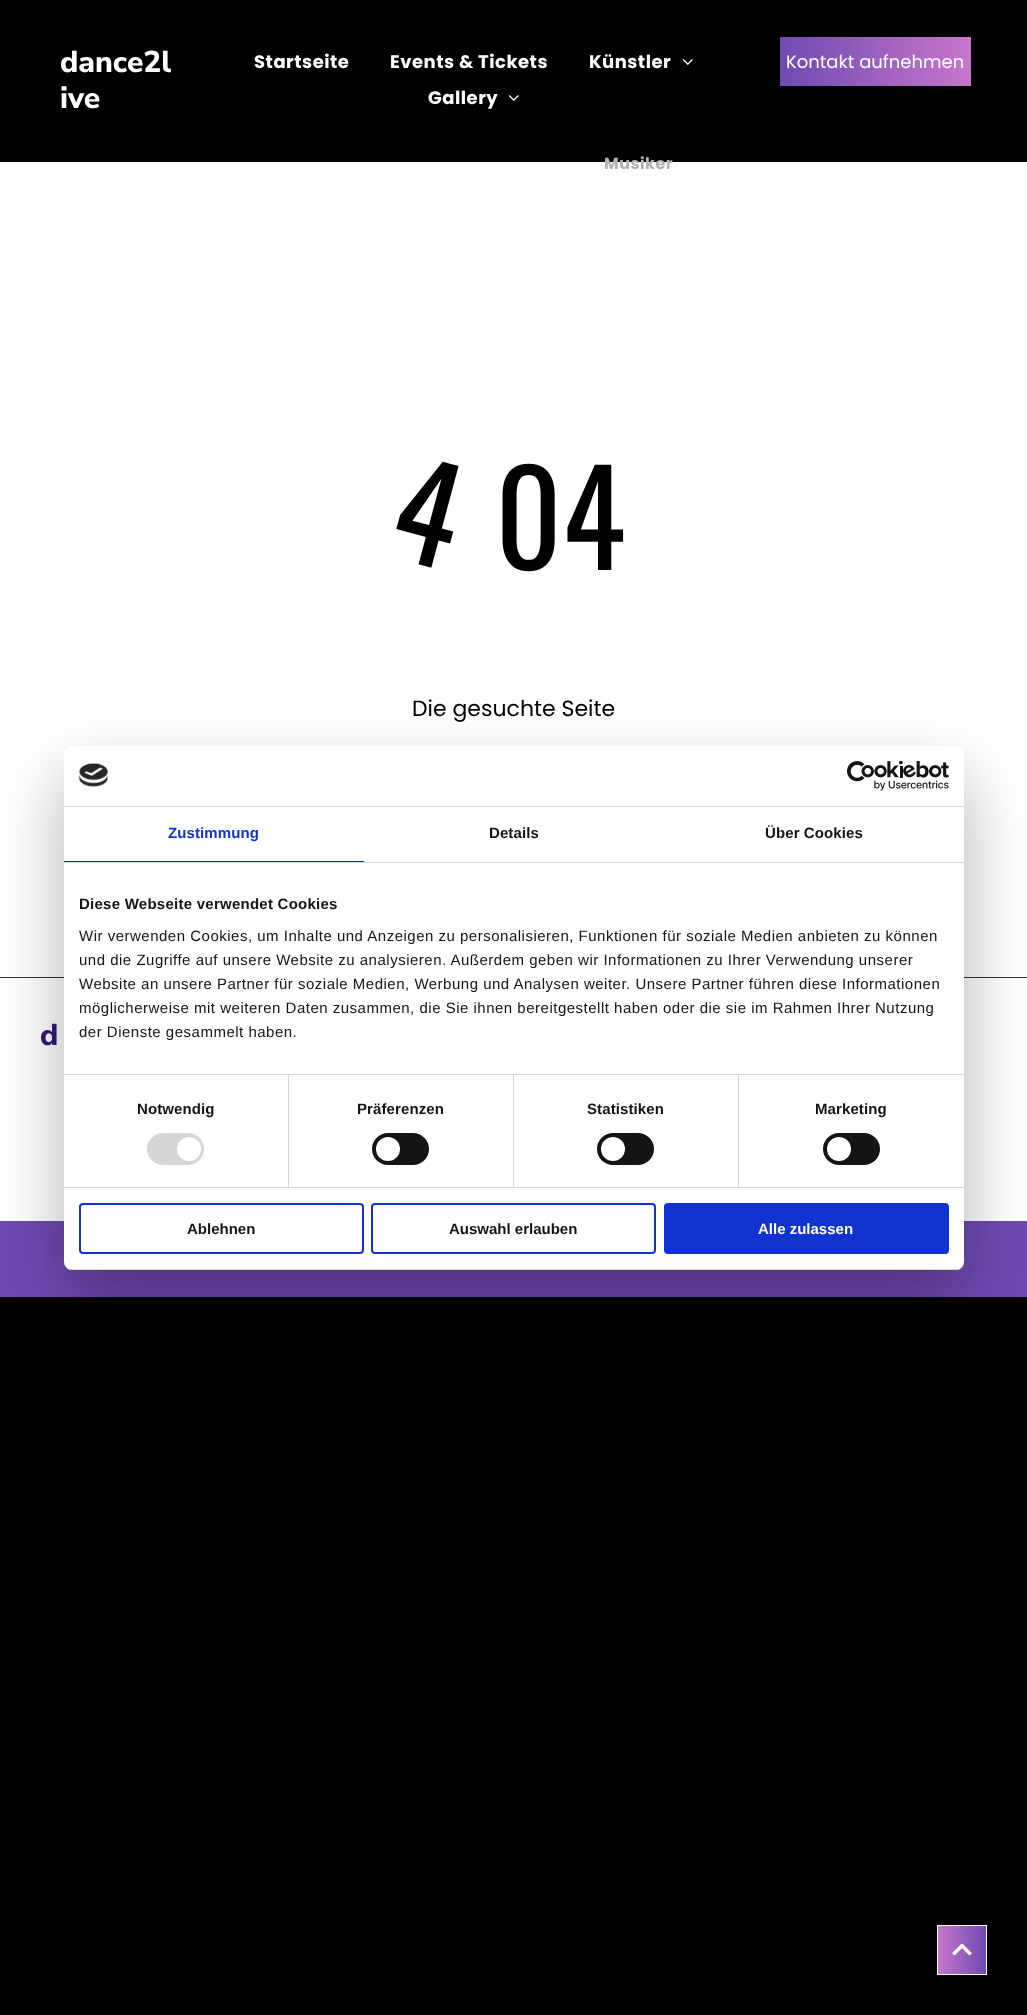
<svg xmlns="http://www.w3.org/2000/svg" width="1027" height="2015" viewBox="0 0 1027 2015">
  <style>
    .t1 { font: 800 30px Nunito Sans; fill: #fff; }
    .t2 { font: bold 18px Poppins; letter-spacing: 0.5px; fill: #fff; }
    .t3 { font: bold 16px Poppins; letter-spacing: 0.5px; fill: #b3b3b3; }
    .t4 { font: 18px Poppins; fill: #fff; }
    .t5 { font: 130px Oswald; fill: #000; }
    .t6 { font: 22px Poppins; fill: #000; }
    .t7 { font: 800 30px Nunito Sans; fill: #351772; }
    .t8 { font: bold 15px Liberation Sans; letter-spacing: 0.1px; fill: #1032cf; }
    .t9 { font: bold 15px Liberation Sans; letter-spacing: 0.1px; fill: #141414; }
    .t10 { font: bold 15px Liberation Sans; letter-spacing: 0.25px; fill: #141414; }
    .t11 { font: 15px Liberation Sans; letter-spacing: 0.5px; fill: #141414; }
    .t12 { font: bold 15px Liberation Sans; fill: #141414; }
    .t13 { font: bold 15px Liberation Sans; fill: #fff; }
  </style>
  <defs>
    <linearGradient id="g1" gradientUnits="userSpaceOnUse" x1="780" y1="62" x2="971" y2="61"><stop offset="0" stop-color="#6f4ab2"/><stop offset="1" stop-color="#c876cb"/></linearGradient>
    <linearGradient id="g2" gradientUnits="userSpaceOnUse" x1="938" y1="1950" x2="986" y2="1950"><stop offset="0" stop-color="#c876cb"/><stop offset="1" stop-color="#6f4ab2"/></linearGradient>
    <clipPath id="clip1"><rect x="64" y="746" width="900" height="524" rx="8"/></clipPath>
  </defs>
  <rect width="100%" height="100%" fill="#000"/>
  <text x="60" y="72" class="t1">dance2l</text>
  <text x="60" y="108" class="t1">ive</text>
  <text x="254" y="68" class="t2">Startseite</text>
  <text x="390" y="68" class="t2">Events &amp; Tickets</text>
  <text x="589" y="68" class="t2">Künstler</text>
  <image x="682" y="59" width="11" height="6" href="images/1.png"/>
  <rect x="0" y="162" width="1027" height="815" fill="#fff"/>
  <text x="604" y="169" class="t3">Musiker</text>
  <text x="428" y="104" class="t2">Gallery</text>
  <image x="508" y="95" width="11" height="6" href="images/1.png"/>
  <rect x="780" y="37" width="191" height="49" fill="url(#g1)"/>
  <text x="786" y="68" class="t4">Kontakt aufnehmen</text>
  <text x="384" y="555" transform="rotate(15 384 555)" class="t5">4</text>
  <text x="495" y="570" class="t5">04</text>
  <text x="412" y="716" class="t6">Die gesuchte Seite</text>
  <rect x="0" y="978" width="1027" height="243" fill="#fff"/>
  <rect x="0" y="977" width="1027" height="1" fill="#333"/>
  <text x="40" y="1045" class="t7">d</text>
  <rect x="0" y="1221" width="1027" height="76" fill="#6f4ab2"/>
  <rect x="938" y="1926" width="48" height="48" fill="url(#g2)"/>
  <rect x="937.5" y="1925.5" width="49" height="49" fill="none" stroke="#fff"/>
  <image x="952" y="1943" width="20" height="13" href="images/2.png"/>
  <rect x="64" y="778" width="900" height="524" rx="8" fill="#0000004d" filter="blur(34px)"/>
  <rect x="64" y="746" width="900" height="524" rx="8" fill="#fff"/>
  <rect x="64" y="806" width="900" height="1" fill="#d6d6d6"/>
  <image x="78" y="763" width="30" height="24" href="images/3.png"/>
  <image x="847" y="761" width="102" height="30" href="images/4.png"/>
  <rect x="64" y="862" width="900" height="1" fill="#d6d6d6"/>
  <rect x="64" y="861" width="300" height="1" fill="#1032cf"/>
  <text x="168" y="838" class="t8">Zustimmung</text>
  <text x="489" y="838" class="t9">Details</text>
  <text x="765" y="838" class="t9">Über Cookies</text>
  <rect x="64" y="1074" width="900" height="1" fill="#d6d6d6"/>
  <text x="79" y="909" class="t10">Diese Webseite verwendet Cookies</text>
  <text x="79" y="941" class="t11">Wir verwenden Cookies, um Inhalte und Anzeigen zu personalisieren, Funktionen für soziale Medien anbieten zu können</text>
  <text x="79" y="965" class="t11">und die Zugriffe auf unsere Website zu analysieren. Außerdem geben wir Informationen zu Ihrer Verwendung unserer</text>
  <text x="79" y="989" class="t11">Website an unsere Partner für soziale Medien, Werbung und Analysen weiter. Unsere Partner führen diese Informationen</text>
  <text x="79" y="1013" class="t11">möglicherweise mit weiteren Daten zusammen, die Sie ihnen bereitgestellt haben oder die sie im Rahmen Ihrer Nutzung</text>
  <text x="79" y="1037" class="t11">der Dienste gesammelt haben.</text>
  <rect x="64" y="1187" width="900" height="1" fill="#d6d6d6"/>
  <rect x="288" y="1075" width="1" height="112" fill="#d6d6d6"/>
  <text x="137" y="1114" class="t9">Notwendig</text>
  <rect x="147" y="1133" width="57" height="32" rx="16" fill="#d6d6d6"/>
  <circle cx="189" cy="1149" r="12" fill="#fff"/>
  <rect x="513" y="1075" width="1" height="112" fill="#d6d6d6"/>
  <text x="357" y="1114" class="t9">Präferenzen</text>
  <rect x="372" y="1133" width="57" height="32" rx="16" fill="#141414"/>
  <circle cx="388" cy="1149" r="12" fill="#fff"/>
  <rect x="738" y="1075" width="1" height="112" fill="#d6d6d6"/>
  <text x="587" y="1114" class="t9">Statistiken</text>
  <rect x="597" y="1133" width="57" height="32" rx="16" fill="#141414"/>
  <circle cx="613" cy="1149" r="12" fill="#fff"/>
  <text x="815" y="1114" class="t9">Marketing</text>
  <rect x="823" y="1133" width="57" height="32" rx="16" fill="#141414"/>
  <circle cx="839" cy="1149" r="12" fill="#fff"/>
  <g clip-path="url(#clip1)">
    <rect x="64" y="1269" width="900" height="1" fill="#d6d6d6"/>
  </g>
  <rect x="80" y="1204" width="283" height="49" rx="3" fill="none" stroke="#1032cf" stroke-width="2"/>
  <text x="187" y="1234" class="t12">Ablehnen</text>
  <rect x="372" y="1204" width="283" height="49" rx="3" fill="none" stroke="#1032cf" stroke-width="2"/>
  <text x="449" y="1234" class="t12">Auswahl erlauben</text>
  <rect x="665" y="1204" width="283" height="49" rx="3" fill="#1032cf" stroke="#1032cf" stroke-width="2"/>
  <text x="758" y="1234" class="t13">Alle zulassen</text>
</svg>
